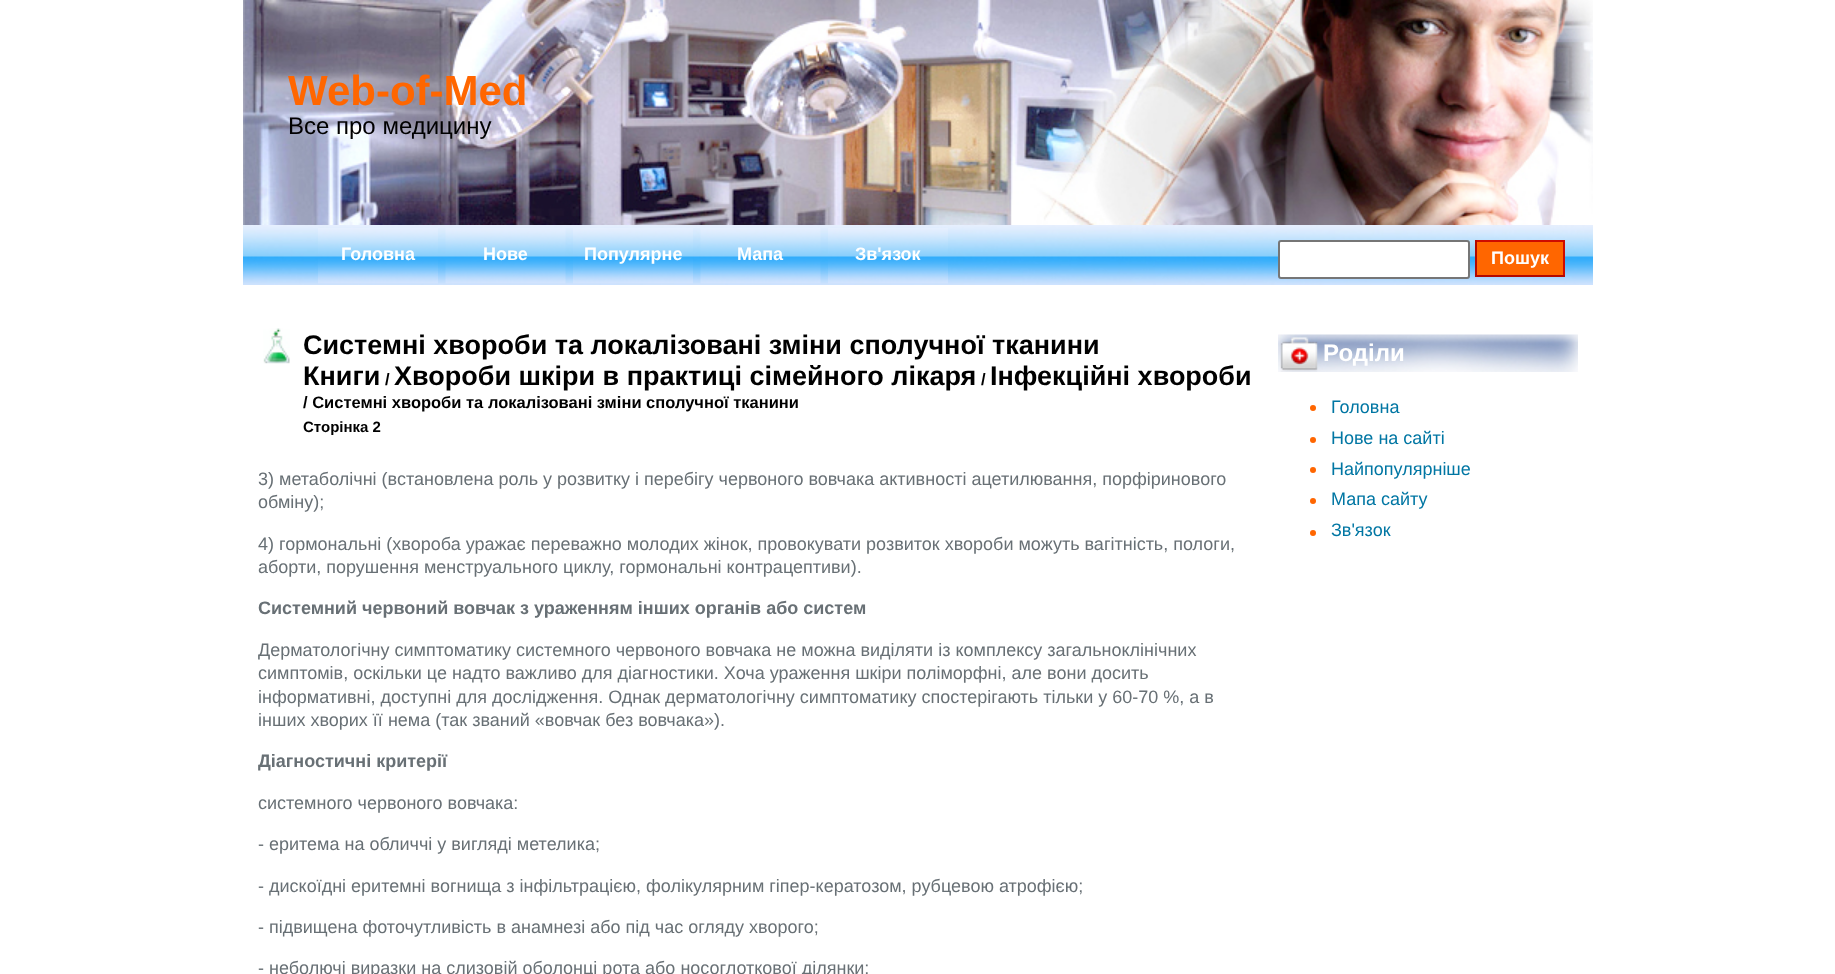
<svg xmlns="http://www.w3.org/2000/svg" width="1835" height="974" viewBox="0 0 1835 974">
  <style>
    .t1 { font: bold 42px Liberation Sans; fill: #f60; }
    .t2 { font: 24px Liberation Sans; fill: #000; }
    .t3 { font: bold 18px Liberation Sans; fill: #fff; }
    .t4 { font: bold 27px Liberation Sans; fill: #000; }
    .t5 { font: bold 16.5px Liberation Sans; fill: #000; }
    .t6 { font: bold 15px Liberation Sans; fill: #000; }
    .t7 { font: 18px Liberation Sans; fill: #687075; }
    .t8 { font: bold 18px Liberation Sans; fill: #687075; }
    .t9 { font: bold 24px Liberation Sans; fill: #fff; }
    .t10 { font: 18px Liberation Sans; fill: #0076a3; }
  </style>
  <rect width="100%" height="100%" fill="#fff"/>
  <image x="243" y="0" width="1350" height="225" href="images/1.png"/>
  <text x="288" y="105" class="t1">Web-of-Med</text>
  <text x="288" y="134" class="t2">Все про медицину</text>
  <image x="243" y="225" width="1350" height="60" href="images/2.png"/>
  <image x="318" y="228" width="120" height="56" href="images/3.png"/>
  <text x="341" y="260" class="t3">Головна</text>
  <image x="445" y="228" width="121" height="56" href="images/4.png"/>
  <text x="483" y="260" class="t3">Нове</text>
  <image x="573" y="228" width="120" height="56" href="images/5.png"/>
  <text x="584" y="260" class="t3">Популярне</text>
  <image x="700" y="228" width="121" height="56" href="images/6.png"/>
  <text x="737" y="260" class="t3">Мапа</text>
  <image x="828" y="228" width="120" height="56" href="images/7.png"/>
  <text x="855" y="260" class="t3">Зв'язок</text>
  <rect x="1279" y="241" width="190" height="37" rx="2" fill="#fff" stroke="#767676" stroke-width="2"/>
  <rect x="1477" y="242" width="86" height="33" fill="#f60"/>
  <rect x="1475" y="240" width="90" height="2" fill="#ce0b00"/>
  <rect x="1563" y="240" width="2" height="36" fill="#ce0b00"/>
  <rect x="1475" y="275" width="90" height="2" fill="#b30900"/>
  <rect x="1475" y="240" width="2" height="36" fill="#b30900"/>
  <text x="1491" y="264" class="t3">Пошук</text>
  <image x="263" y="328" width="27" height="36" href="images/8.png"/>
  <text x="303" y="354" class="t4">Системні хвороби та локалізовані зміни сполучної тканини</text>
  <text x="303" y="385" class="t4">Книги</text>
  <text x="385" y="385" class="t5">/</text>
  <text x="394" y="385" class="t4">Хвороби шкіри в практиці сімейного лікаря</text>
  <text x="981" y="385" class="t5">/</text>
  <text x="990" y="385" class="t4">Інфекційні хвороби</text>
  <text x="303" y="408" class="t5">/ Системні хвороби та локалізовані зміни сполучної тканини</text>
  <text x="303" y="432" class="t6">Сторінка 2</text>
  <text x="258" y="485" class="t7">3) метаболічні (встановлена роль у розвитку і перебігу червоного вовчака активності ацетилювання, порфіринового</text>
  <text x="258" y="508" class="t7">обміну);</text>
  <text x="258" y="550" class="t7">4) гормональні (хвороба уражає переважно молодих жінок, провокувати розвиток хвороби можуть вагітність, пологи,</text>
  <text x="258" y="573" class="t7">аборти, порушення менструального циклу, гормональні контрацептиви).</text>
  <text x="258" y="614" class="t8">Системний червоний вовчак з ураженням інших органів або систем</text>
  <text x="258" y="656" class="t7">Дерматологічну симптоматику системного червоного вовчака не можна виділяти із комплексу загальноклінічних</text>
  <text x="258" y="679" class="t7">симптомів, оскільки це надто важливо для діагностики. Хоча ураження шкіри поліморфні, але вони досить</text>
  <text x="258" y="703" class="t7">інформативні, доступні для дослідження. Однак дерматологічну симптоматику спостерігають тільки у 60-70 %, а в</text>
  <text x="258" y="726" class="t7">інших хворих її нема (так званий «вовчак без вовчака»).</text>
  <text x="258" y="767" class="t8">Діагностичні критерії</text>
  <text x="258" y="809" class="t7">системного червоного вовчака:</text>
  <text x="258" y="850" class="t7">- еритема на обличчі у вигляді метелика;</text>
  <text x="258" y="892" class="t7">- дискоїдні еритемні вогнища з інфільтрацією, фолікулярним гіпер-кератозом, рубцевою атрофією;</text>
  <text x="258" y="933" class="t7">- підвищена фоточутливість в анамнезі або під час огляду хворого;</text>
  <text x="258" y="974" class="t7">- неболючі виразки на слизовій оболонці рота або носоглоткової ділянки;</text>
  <image x="1278" y="334" width="300" height="38" href="images/9.png"/>
  <text x="1323" y="361" class="t9">Роділи</text>
  <circle cx="1313" cy="408" r="3" fill="#f60"/>
  <text x="1331" y="413" class="t10">Головна</text>
  <circle cx="1313" cy="440" r="3" fill="#f60"/>
  <text x="1331" y="444" class="t10">Нове на сайті</text>
  <circle cx="1313" cy="470" r="3" fill="#f60"/>
  <text x="1331" y="475" class="t10">Найпопулярніше</text>
  <circle cx="1313" cy="501" r="3" fill="#f60"/>
  <text x="1331" y="505" class="t10">Мапа сайту</text>
  <circle cx="1313" cy="533" r="3" fill="#f60"/>
  <text x="1331" y="536" class="t10">Зв'язок</text>
</svg>
